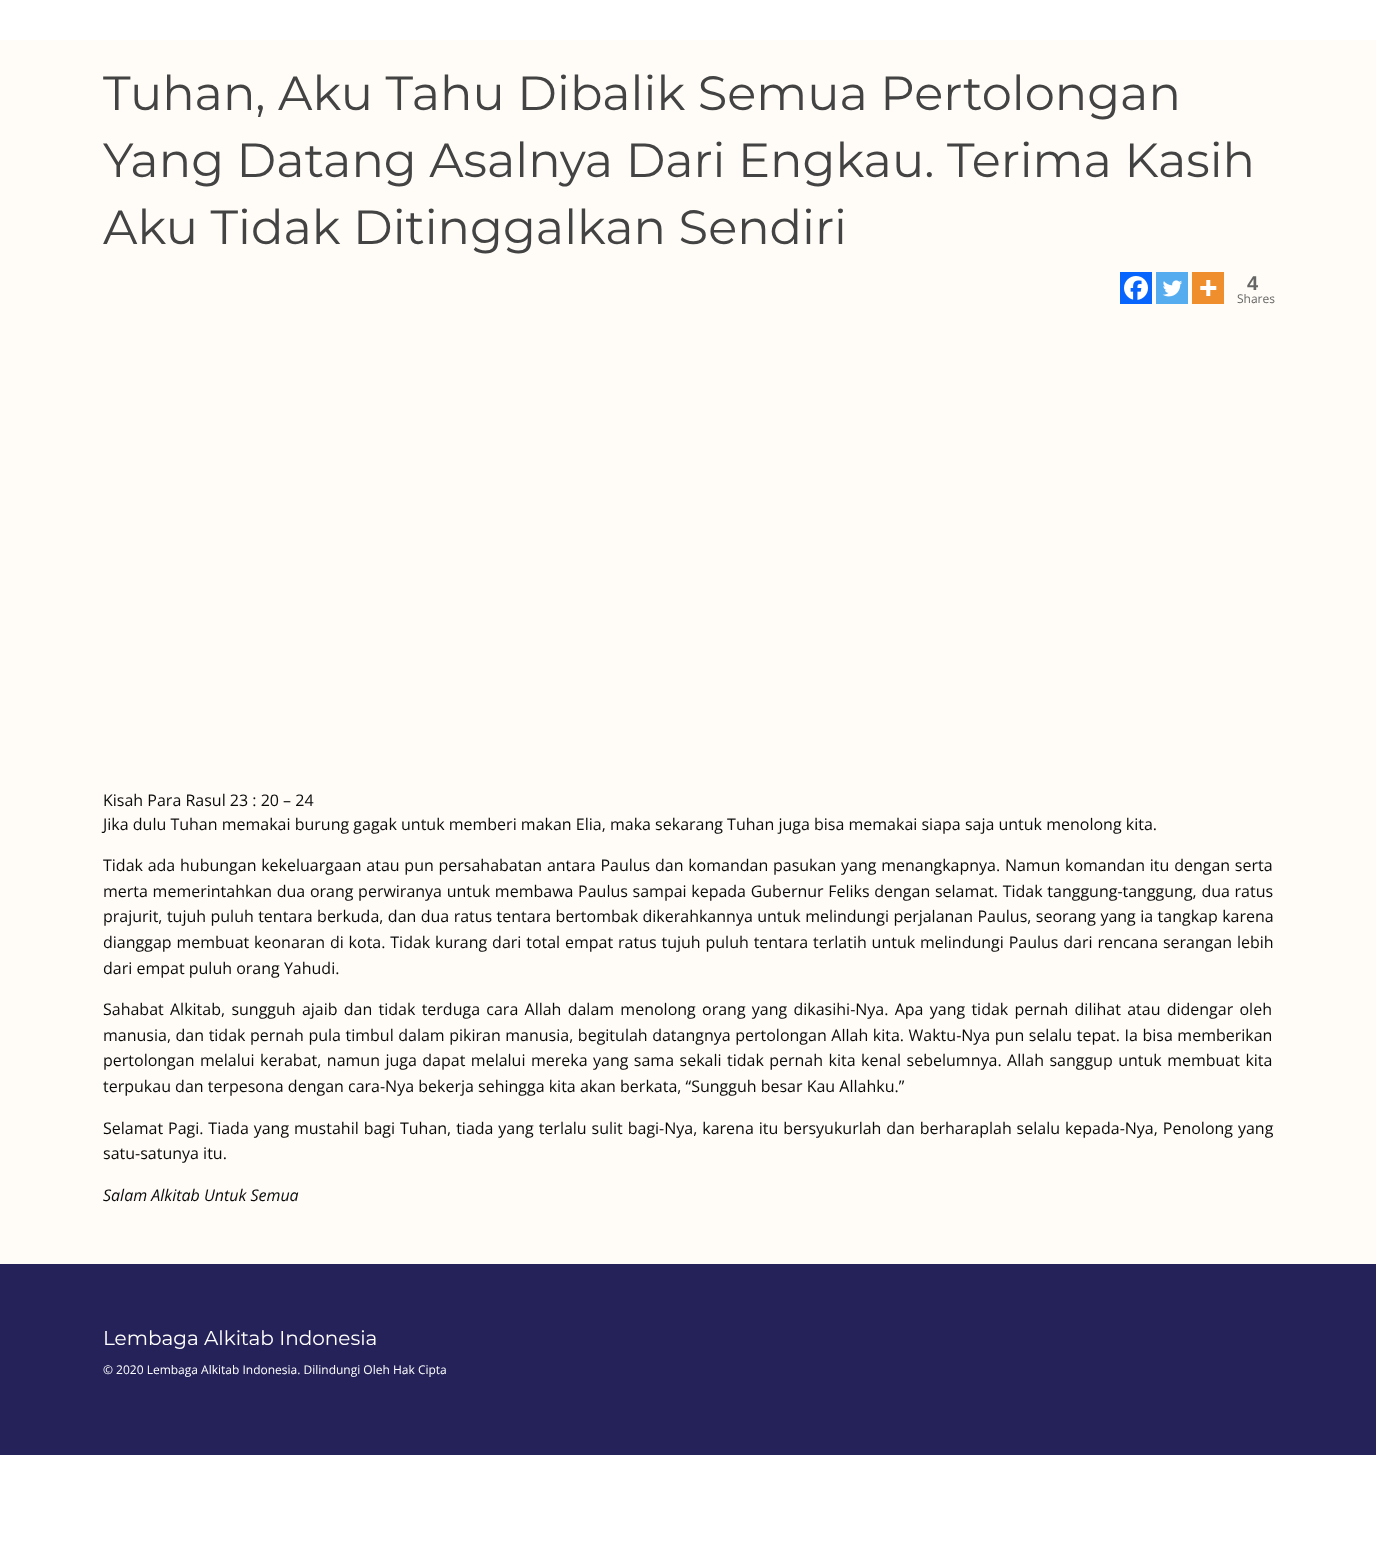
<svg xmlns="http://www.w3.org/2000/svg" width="1376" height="1548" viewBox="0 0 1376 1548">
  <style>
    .t1 { font: 48px Montserrat; fill: #434343; }
    .t2 { font: bold 20px Liberation Sans; fill: #666; }
    .t3 { font: 12px Open Sans; fill: #666; }
    .t4 { font: 16px Open Sans; fill: #0a0a0a; }
    .t5 { font: italic 16px Open Sans; fill: #0a0a0a; }
    .t6 { font: 20px Montserrat; fill: #fff; }
    .t7 { font: 12px Open Sans; fill: #fff; }
  </style>
  <rect width="100%" height="100%" fill="#fff"/>
  <rect x="0" y="40" width="1376" height="1224" fill="#fffcf7"/>
  <text x="103" y="110" class="t1">Tuhan, Aku Tahu Dibalik Semua Pertolongan</text>
  <text x="103" y="177" class="t1">Yang Datang Asalnya Dari Engkau. Terima Kasih</text>
  <text x="103" y="244" class="t1">Aku Tidak Ditinggalkan Sendiri</text>
  <rect x="1120" y="272" width="32" height="32" fill="#0765fe"/>
  <image x="1124" y="276" width="24" height="24" href="images/1.png"/>
  <rect x="1156" y="272" width="32" height="32" fill="#55acee"/>
  <image x="1162" y="280" width="21" height="17" href="images/2.png"/>
  <rect x="1192" y="272" width="32" height="32" fill="#ee8e2d"/>
  <image x="1200" y="280" width="17" height="16" href="images/3.png"/>
  <text x="1247" y="290" class="t2">4</text>
  <text x="1237" y="303" class="t3">Shares</text>
  <text x="103" y="806" class="t4">Kisah Para Rasul 23 : 20 – 24</text>
  <text x="103" y="830" class="t4">Jika dulu Tuhan memakai burung gagak untuk memberi makan Elia, maka sekarang Tuhan juga bisa memakai siapa saja untuk menolong kita.</text>
  <text x="103" y="871" word-spacing="0.6" class="t4">Tidak ada hubungan kekeluargaan atau pun persahabatan antara Paulus dan komandan pasukan yang menangkapnya. Namun komandan itu dengan serta</text>
  <text x="103" y="897" word-spacing="0.5" class="t4">merta memerintahkan dua orang perwiranya untuk membawa Paulus sampai kepada Gubernur Feliks dengan selamat. Tidak tanggung-tanggung, dua ratus</text>
  <text x="103" y="922" word-spacing="0.25" class="t4">prajurit, tujuh puluh tentara berkuda, dan dua ratus tentara bertombak dikerahkannya untuk melindungi perjalanan Paulus, seorang yang ia tangkap karena</text>
  <text x="103" y="948" word-spacing="0.7" class="t4">dianggap membuat keonaran di kota. Tidak kurang dari total empat ratus tujuh puluh tentara terlatih untuk melindungi Paulus dari rencana serangan lebih</text>
  <text x="103" y="974" class="t4">dari empat puluh orang Yahudi.</text>
  <text x="103" y="1015" word-spacing="2.1" class="t4">Sahabat Alkitab, sungguh ajaib dan tidak terduga cara Allah dalam menolong orang yang dikasihi-Nya. Apa yang tidak pernah dilihat atau didengar oleh</text>
  <text x="103" y="1041" word-spacing="0.4" class="t4">manusia, dan tidak pernah pula timbul dalam pikiran manusia, begitulah datangnya pertolongan Allah kita. Waktu-Nya pun selalu tepat. Ia bisa memberikan</text>
  <text x="103" y="1066" word-spacing="1.3" class="t4">pertolongan melalui kerabat, namun juga dapat melalui mereka yang sama sekali tidak pernah kita kenal sebelumnya. Allah sanggup untuk membuat kita</text>
  <text x="103" y="1092" class="t4">terpukau dan terpesona dengan cara-Nya bekerja sehingga kita akan berkata, “Sungguh besar Kau Allahku.”</text>
  <text x="103" y="1134" word-spacing="0.75" class="t4">Selamat Pagi. Tiada yang mustahil bagi Tuhan, tiada yang terlalu sulit bagi-Nya, karena itu bersyukurlah dan berharaplah selalu kepada-Nya, Penolong yang</text>
  <text x="103" y="1159" class="t4">satu-satunya itu.</text>
  <text x="103" y="1201" class="t5">Salam Alkitab Untuk Semua</text>
  <rect x="0" y="1264" width="1376" height="191" fill="#242258"/>
  <text x="103" y="1345" class="t6">Lembaga Alkitab Indonesia</text>
  <text x="103" y="1374" class="t7">© 2020 Lembaga Alkitab Indonesia. Dilindungi Oleh Hak Cipta</text>
</svg>
